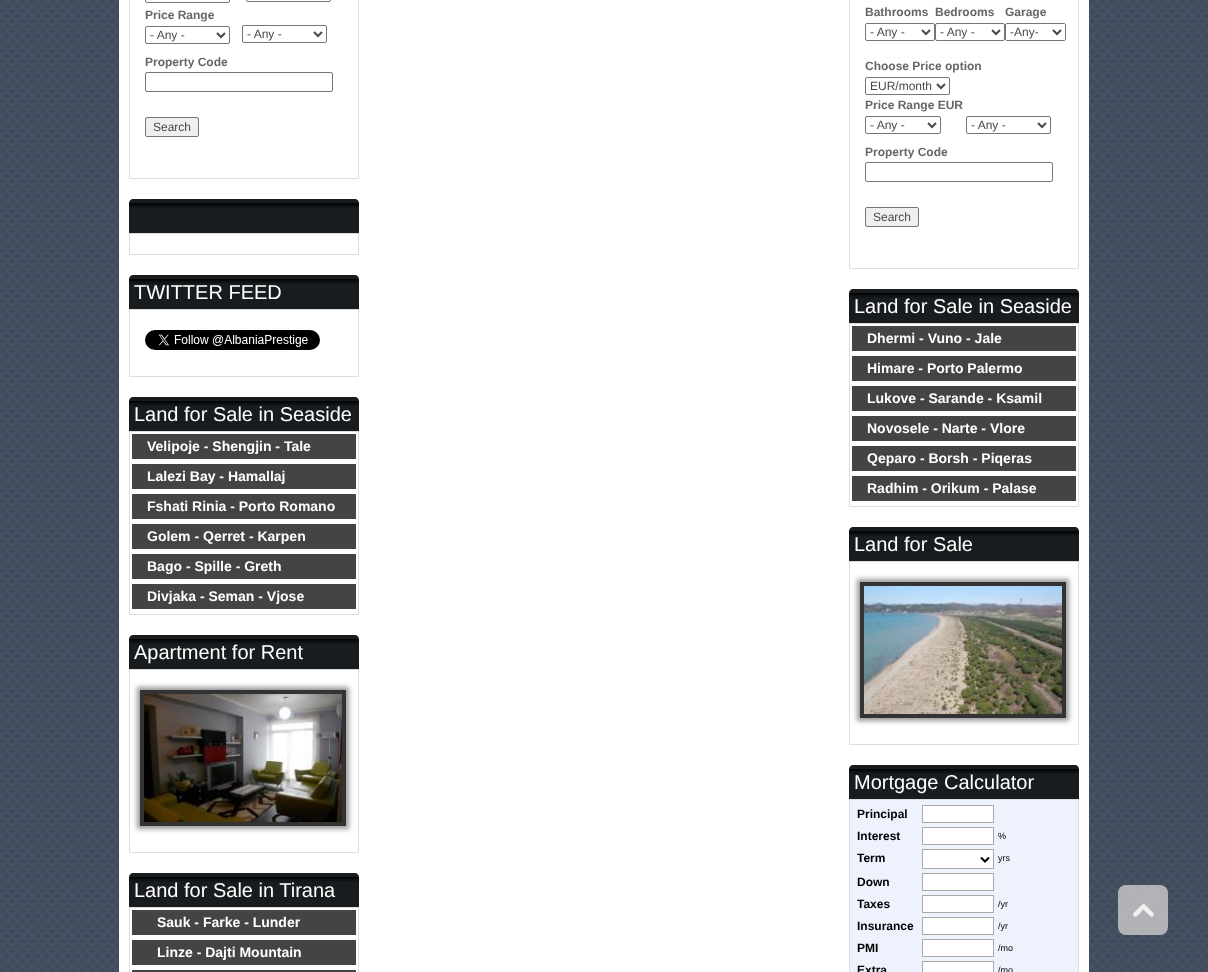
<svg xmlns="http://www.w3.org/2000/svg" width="1208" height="972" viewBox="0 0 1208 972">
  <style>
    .t1 { font: bold 12px Liberation Sans; fill: #666; }
    .t2 { font: 12px Liberation Sans; fill: #494949; }
    .t3 { font: 20px Liberation Sans; fill: #fff; }
    .t4 { font: bold 14px Liberation Sans; fill: #fff; }
    .t5 { font: bold 12px Liberation Sans; fill: #000; }
    .t6 { font: 9px Liberation Sans; fill: #000; }
  </style>
  <defs>
    <linearGradient id="g1" gradientUnits="userSpaceOnUse" x1="-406" y1="169" x2="-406" y2="203"><stop offset="0" stop-color="#000"/><stop offset="0.15" stop-color="#191c1f"/><stop offset="1" stop-color="#191c1f"/></linearGradient>
    <linearGradient id="g2" gradientUnits="userSpaceOnUse" x1="-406" y1="203" x2="-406" y2="237"><stop offset="0" stop-color="#000"/><stop offset="0.15" stop-color="#191c1f"/><stop offset="1" stop-color="#191c1f"/></linearGradient>
    <linearGradient id="g3" gradientUnits="userSpaceOnUse" x1="-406" y1="245" x2="-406" y2="279"><stop offset="0" stop-color="#000"/><stop offset="0.15" stop-color="#191c1f"/><stop offset="1" stop-color="#191c1f"/></linearGradient>
    <linearGradient id="g4" gradientUnits="userSpaceOnUse" x1="-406" y1="279" x2="-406" y2="313"><stop offset="0" stop-color="#000"/><stop offset="0.15" stop-color="#191c1f"/><stop offset="1" stop-color="#191c1f"/></linearGradient>
    <linearGradient id="g5" gradientUnits="userSpaceOnUse" x1="-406" y1="367" x2="-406" y2="401"><stop offset="0" stop-color="#000"/><stop offset="0.15" stop-color="#191c1f"/><stop offset="1" stop-color="#191c1f"/></linearGradient>
    <linearGradient id="g6" gradientUnits="userSpaceOnUse" x1="-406" y1="401" x2="-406" y2="435"><stop offset="0" stop-color="#000"/><stop offset="0.15" stop-color="#191c1f"/><stop offset="1" stop-color="#191c1f"/></linearGradient>
    <linearGradient id="g7" gradientUnits="userSpaceOnUse" x1="-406" y1="605" x2="-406" y2="639"><stop offset="0" stop-color="#000"/><stop offset="0.15" stop-color="#191c1f"/><stop offset="1" stop-color="#191c1f"/></linearGradient>
    <linearGradient id="g8" gradientUnits="userSpaceOnUse" x1="-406" y1="639" x2="-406" y2="673"><stop offset="0" stop-color="#000"/><stop offset="0.15" stop-color="#191c1f"/><stop offset="1" stop-color="#191c1f"/></linearGradient>
    <linearGradient id="g9" gradientUnits="userSpaceOnUse" x1="-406" y1="843" x2="-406" y2="877"><stop offset="0" stop-color="#000"/><stop offset="0.15" stop-color="#191c1f"/><stop offset="1" stop-color="#191c1f"/></linearGradient>
    <linearGradient id="g10" gradientUnits="userSpaceOnUse" x1="-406" y1="877" x2="-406" y2="911"><stop offset="0" stop-color="#000"/><stop offset="0.15" stop-color="#191c1f"/><stop offset="1" stop-color="#191c1f"/></linearGradient>
    <linearGradient id="g11" gradientUnits="userSpaceOnUse" x1="314" y1="259" x2="314" y2="293"><stop offset="0" stop-color="#000"/><stop offset="0.15" stop-color="#191c1f"/><stop offset="1" stop-color="#191c1f"/></linearGradient>
    <linearGradient id="g12" gradientUnits="userSpaceOnUse" x1="314" y1="293" x2="314" y2="327"><stop offset="0" stop-color="#000"/><stop offset="0.15" stop-color="#191c1f"/><stop offset="1" stop-color="#191c1f"/></linearGradient>
    <linearGradient id="g13" gradientUnits="userSpaceOnUse" x1="314" y1="497" x2="314" y2="531"><stop offset="0" stop-color="#000"/><stop offset="0.15" stop-color="#191c1f"/><stop offset="1" stop-color="#191c1f"/></linearGradient>
    <linearGradient id="g14" gradientUnits="userSpaceOnUse" x1="314" y1="531" x2="314" y2="565"><stop offset="0" stop-color="#000"/><stop offset="0.15" stop-color="#191c1f"/><stop offset="1" stop-color="#191c1f"/></linearGradient>
    <linearGradient id="g15" gradientUnits="userSpaceOnUse" x1="314" y1="735" x2="314" y2="769"><stop offset="0" stop-color="#000"/><stop offset="0.15" stop-color="#191c1f"/><stop offset="1" stop-color="#191c1f"/></linearGradient>
    <linearGradient id="g16" gradientUnits="userSpaceOnUse" x1="314" y1="769" x2="314" y2="803"><stop offset="0" stop-color="#000"/><stop offset="0.15" stop-color="#191c1f"/><stop offset="1" stop-color="#191c1f"/></linearGradient>
  </defs>
  <rect width="100%" height="100%" fill="#455162"/>
  <image x="0" y="0" width="1208" height="972" href="images/1.png"/>
  <rect x="119" y="0" width="970" height="972" fill="#fff"/>
  <rect x="129.5" y="-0.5" width="229" height="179" fill="none" stroke="#ddd"/>
  <rect x="145.5" y="-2.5" width="84" height="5" rx="1.5" fill="none" stroke="#767676"/>
  <rect x="246.5" y="-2.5" width="84" height="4" rx="1.5" fill="none" stroke="#767676"/>
  <text x="145" y="19" class="t1">Price Range</text>
  <rect x="145.5" y="26.5" width="84" height="17" rx="1.5" fill="none" stroke="#767676"/>
  <path d="M217 33L221 37L225 33" fill="none" stroke="#494949" stroke-width="2"/>
  <text x="150" y="39" class="t2">- Any -</text>
  <rect x="242.5" y="25.5" width="84" height="17" rx="1.5" fill="none" stroke="#767676"/>
  <path d="M314 32L318 36L322 32" fill="none" stroke="#494949" stroke-width="2"/>
  <text x="247" y="38" class="t2">- Any -</text>
  <text x="145" y="66" class="t1">Property Code</text>
  <rect x="145.5" y="72.5" width="187" height="19" rx="1.5" fill="none" stroke="#767676"/>
  <rect x="145.5" y="117.5" width="53" height="19" rx="1.5" fill="#efefef" stroke="#767676"/>
  <text x="153" y="131" class="t2">Search</text>
  <path d="M133 199H355C357 199 359 201 359 203H129C129 201 131 199 133 199Z" fill="url(#g1)"/>
  <rect x="129" y="203" width="230" height="30" fill="url(#g2)"/>
  <rect x="129.5" y="233.5" width="229" height="21" fill="none" stroke="#ddd"/>
  <path d="M133 275H355C357 275 359 277 359 279H129C129 277 131 275 133 275Z" fill="url(#g3)"/>
  <rect x="129" y="279" width="230" height="30" fill="url(#g4)"/>
  <text x="134" y="299" class="t3">TWITTER FEED</text>
  <rect x="129.5" y="309.5" width="229" height="67" fill="none" stroke="#ddd"/>
  <image x="145" y="330" width="175" height="20" href="images/2.png"/>
  <path d="M133 397H355C357 397 359 399 359 401H129C129 399 131 397 133 397Z" fill="url(#g5)"/>
  <rect x="129" y="401" width="230" height="30" fill="url(#g6)"/>
  <text x="134" y="421" class="t3">Land for Sale in Seaside</text>
  <rect x="129.5" y="431.5" width="229" height="183" fill="none" stroke="#ddd"/>
  <rect x="132" y="434" width="224" height="25" fill="#444"/>
  <text x="147" y="451" class="t4">Velipoje - Shengjin - Tale</text>
  <rect x="132" y="464" width="224" height="25" fill="#444"/>
  <text x="147" y="481" class="t4">Lalezi Bay - Hamallaj</text>
  <rect x="132" y="494" width="224" height="25" fill="#444"/>
  <text x="147" y="511" class="t4">Fshati Rinia - Porto Romano</text>
  <rect x="132" y="524" width="224" height="25" fill="#444"/>
  <text x="147" y="541" class="t4">Golem - Qerret - Karpen</text>
  <rect x="132" y="554" width="224" height="25" fill="#444"/>
  <text x="147" y="571" class="t4">Bago - Spille - Greth</text>
  <rect x="132" y="584" width="224" height="25" fill="#444"/>
  <text x="147" y="601" class="t4">Divjaka - Seman - Vjose</text>
  <path d="M133 635H355C357 635 359 637 359 639H129C129 637 131 635 133 635Z" fill="url(#g7)"/>
  <rect x="129" y="639" width="230" height="30" fill="url(#g8)"/>
  <text x="134" y="659" class="t3">Apartment for Rent</text>
  <rect x="129.5" y="669.5" width="229" height="183" fill="none" stroke="#ddd"/>
  <rect x="137" y="687" width="212" height="142" fill="#999" filter="blur(2.5px)"/>
  <rect x="142" y="692" width="202" height="132" fill="none" stroke="#333" stroke-width="4"/>
  <image x="144" y="694" width="198" height="128" href="images/3.png"/>
  <path d="M133 873H355C357 873 359 875 359 877H129C129 875 131 873 133 873Z" fill="url(#g9)"/>
  <rect x="129" y="877" width="230" height="30" fill="url(#g10)"/>
  <text x="134" y="897" class="t3">Land for Sale in Tirana</text>
  <rect x="129.5" y="907.5" width="229" height="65" fill="none" stroke="#ddd"/>
  <rect x="132" y="910" width="224" height="25" fill="#444"/>
  <text x="157" y="927" class="t4">Sauk - Farke - Lunder</text>
  <rect x="132" y="940" width="224" height="25" fill="#444"/>
  <text x="157" y="957" class="t4">Linze - Dajti Mountain</text>
  <rect x="132" y="970" width="224" height="2" fill="#444"/>
  <rect x="849.5" y="-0.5" width="229" height="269" fill="none" stroke="#ddd"/>
  <text x="865" y="16" class="t1">Bathrooms</text>
  <rect x="865.5" y="23.5" width="69" height="17" rx="1.5" fill="none" stroke="#767676"/>
  <path d="M922 30L926 34L930 30" fill="none" stroke="#494949" stroke-width="2"/>
  <text x="870" y="36" class="t2">- Any -</text>
  <text x="935" y="16" class="t1">Bedrooms</text>
  <rect x="935.5" y="23.5" width="69" height="17" rx="1.5" fill="none" stroke="#767676"/>
  <path d="M992 30L996 34L1000 30" fill="none" stroke="#494949" stroke-width="2"/>
  <text x="940" y="36" class="t2">- Any -</text>
  <text x="1005" y="16" class="t1">Garage</text>
  <rect x="1005.5" y="23.5" width="60" height="17" rx="1.5" fill="none" stroke="#767676"/>
  <path d="M1053 30L1057 34L1061 30" fill="none" stroke="#494949" stroke-width="2"/>
  <text x="1010" y="36" class="t2">-Any-</text>
  <text x="865" y="70" class="t1">Choose Price option</text>
  <rect x="865.5" y="77.5" width="84" height="17" rx="1.5" fill="none" stroke="#767676"/>
  <path d="M937 84L941 88L945 84" fill="none" stroke="#494949" stroke-width="2"/>
  <text x="870" y="90" class="t2">EUR/month</text>
  <rect x="865.5" y="207.5" width="53" height="19" rx="1.5" fill="#efefef" stroke="#767676"/>
  <text x="873" y="221" class="t2">Search</text>
  <text x="865" y="109" class="t1">Price Range EUR</text>
  <rect x="865.5" y="116.5" width="75" height="17" rx="1.5" fill="none" stroke="#767676"/>
  <path d="M928 123L932 127L936 123" fill="none" stroke="#494949" stroke-width="2"/>
  <text x="870" y="129" class="t2">- Any -</text>
  <rect x="966.5" y="116.5" width="84" height="17" rx="1.5" fill="none" stroke="#767676"/>
  <path d="M1038 123L1042 127L1046 123" fill="none" stroke="#494949" stroke-width="2"/>
  <text x="971" y="129" class="t2">- Any -</text>
  <text x="865" y="156" class="t1">Property Code</text>
  <rect x="865.5" y="162.5" width="187" height="19" rx="1.5" fill="none" stroke="#767676"/>
  <path d="M853 289H1075C1077 289 1079 291 1079 293H849C849 291 851 289 853 289Z" fill="url(#g11)"/>
  <rect x="849" y="293" width="230" height="30" fill="url(#g12)"/>
  <text x="854" y="313" class="t3">Land for Sale in Seaside</text>
  <rect x="849.5" y="323.5" width="229" height="183" fill="none" stroke="#ddd"/>
  <rect x="852" y="326" width="224" height="25" fill="#444"/>
  <text x="867" y="343" class="t4">Dhermi - Vuno - Jale</text>
  <rect x="852" y="356" width="224" height="25" fill="#444"/>
  <text x="867" y="373" class="t4">Himare - Porto Palermo</text>
  <rect x="852" y="386" width="224" height="25" fill="#444"/>
  <text x="867" y="403" class="t4">Lukove - Sarande - Ksamil</text>
  <rect x="852" y="416" width="224" height="25" fill="#444"/>
  <text x="867" y="433" class="t4">Novosele - Narte - Vlore</text>
  <rect x="852" y="446" width="224" height="25" fill="#444"/>
  <text x="867" y="463" class="t4">Qeparo - Borsh - Piqeras</text>
  <rect x="852" y="476" width="224" height="25" fill="#444"/>
  <text x="867" y="493" class="t4">Radhim - Orikum - Palase</text>
  <path d="M853 527H1075C1077 527 1079 529 1079 531H849C849 529 851 527 853 527Z" fill="url(#g13)"/>
  <rect x="849" y="531" width="230" height="30" fill="url(#g14)"/>
  <text x="854" y="551" class="t3">Land for Sale</text>
  <rect x="849.5" y="561.5" width="229" height="183" fill="none" stroke="#ddd"/>
  <rect x="857" y="579" width="212" height="142" fill="#999" filter="blur(2.5px)"/>
  <rect x="862" y="584" width="202" height="132" fill="none" stroke="#333" stroke-width="4"/>
  <image x="864" y="586" width="198" height="128" href="images/4.png"/>
  <path d="M853 765H1075C1077 765 1079 767 1079 769H849C849 767 851 765 853 765Z" fill="url(#g15)"/>
  <rect x="849" y="769" width="230" height="30" fill="url(#g16)"/>
  <text x="854" y="789" class="t3">Mortgage Calculator</text>
  <rect x="849.5" y="799.5" width="229" height="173" fill="none" stroke="#ddd"/>
  <rect x="850" y="800" width="228" height="172" fill="#eef2fd"/>
  <text x="857" y="818" class="t5">Principal</text>
  <rect x="922.5" y="805.5" width="71" height="17" fill="#fff" stroke="#aaa"/>
  <text x="857" y="840" class="t5">Interest</text>
  <rect x="922.5" y="827.5" width="71" height="17" fill="#fff" stroke="#aaa"/>
  <text x="998" y="839" class="t6">%</text>
  <text x="857" y="862" class="t5">Term</text>
  <rect x="922.5" y="849.5" width="71" height="19" fill="#fff" stroke="#aaa"/>
  <path d="M981 857.5L985 861.5L989 857.5" fill="none" stroke="#000" stroke-width="2"/>
  <text x="998" y="861" class="t6">yrs</text>
  <text x="857" y="886" class="t5">Down</text>
  <rect x="922.5" y="873.5" width="71" height="17" fill="#fff" stroke="#aaa"/>
  <text x="857" y="908" class="t5">Taxes</text>
  <rect x="922.5" y="895.5" width="71" height="17" fill="#fff" stroke="#aaa"/>
  <text x="998" y="907" class="t6">/yr</text>
  <text x="857" y="930" class="t5">Insurance</text>
  <rect x="922.5" y="917.5" width="71" height="17" fill="#fff" stroke="#aaa"/>
  <text x="998" y="929" class="t6">/yr</text>
  <text x="857" y="952" class="t5">PMI</text>
  <rect x="922.5" y="939.5" width="71" height="17" fill="#fff" stroke="#aaa"/>
  <text x="998" y="951" class="t6">/mo</text>
  <text x="857" y="974" class="t5">Extra</text>
  <rect x="922.5" y="961.5" width="71" height="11" fill="#fff" stroke="#aaa"/>
  <text x="998" y="973" class="t6">/mo</text>
  <rect x="1118" y="885" width="50" height="50" rx="8" fill="#cccccccc"/>
  <image x="1133" y="904" width="21" height="13" href="images/5.png"/>
</svg>
